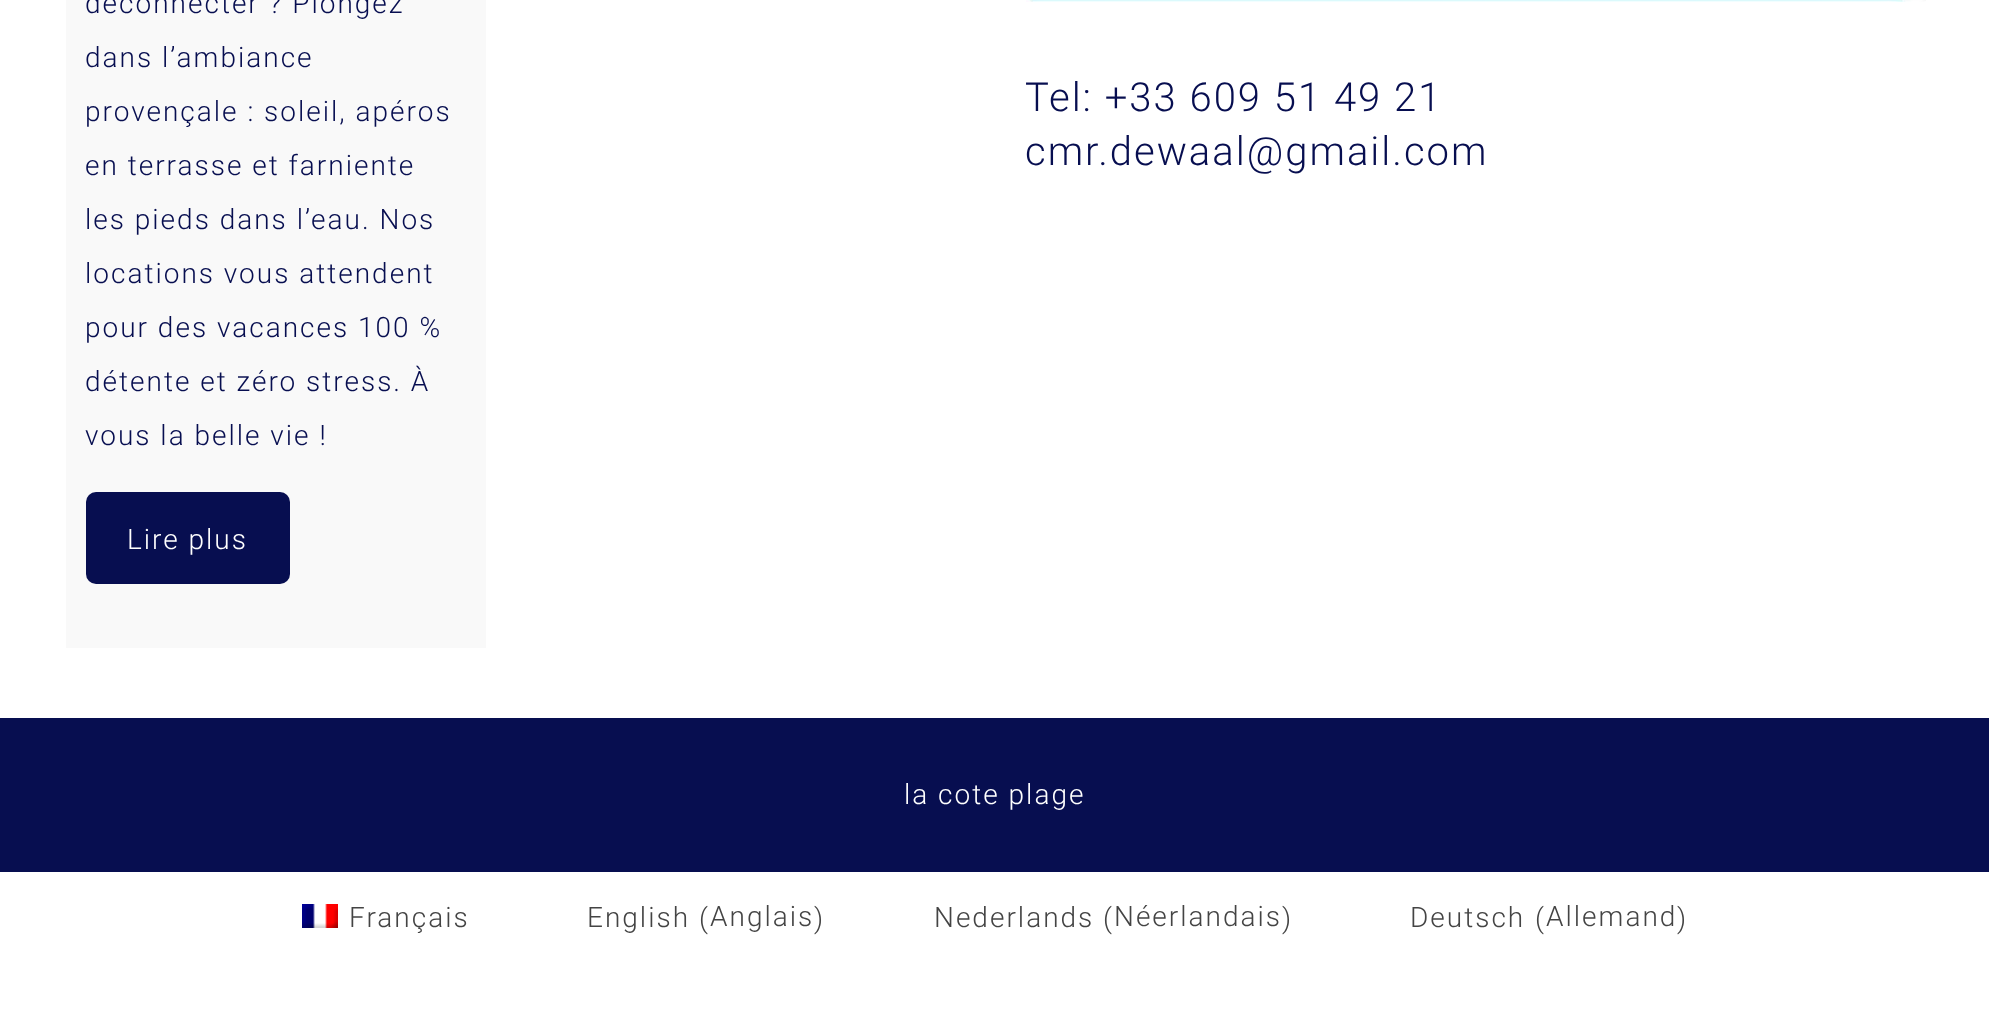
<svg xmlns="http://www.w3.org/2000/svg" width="1989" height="1018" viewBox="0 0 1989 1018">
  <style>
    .t1 { font: 300 28px Roboto; letter-spacing: 2px; fill: #070e50; }
    .t2 { font: 300 28px Roboto; letter-spacing: 2px; fill: #fff; }
    .t3 { font: 300 40px Roboto; letter-spacing: 2px; fill: #070e50; }
    .t4 { font: 300 28px Roboto; letter-spacing: 2px; fill: #444; }
  </style>
  <rect width="100%" height="100%" fill="#fff"/>
  <rect x="66" y="0" width="420" height="648" fill="#f9f9f9"/>
  <text x="85" y="13" class="t1">déconnecter ? Plongez</text>
  <text x="85" y="67" class="t1">dans l’ambiance</text>
  <text x="85" y="121" class="t1">provençale : soleil, apéros</text>
  <text x="85" y="175" class="t1">en terrasse et farniente</text>
  <text x="85" y="229" class="t1">les pieds dans l’eau. Nos</text>
  <text x="85" y="283" class="t1">locations vous attendent</text>
  <text x="85" y="337" class="t1">pour des vacances 100 %</text>
  <text x="85" y="391" class="t1">détente et zéro stress. À</text>
  <text x="85" y="445" class="t1">vous la belle vie !</text>
  <rect x="86" y="492" width="204" height="92" rx="10" fill="#070e50"/>
  <text x="127" y="549" class="t2">Lire plus</text>
  <image x="1026" y="0" width="900" height="2" href="images/1.png"/>
  <text x="1025" y="111" class="t3">Tel: +33 609 51 49 21</text>
  <text x="1025" y="165" class="t3">cmr.dewaal@gmail.com</text>
  <rect x="0" y="718" width="1989" height="154" fill="#070e50"/>
  <text x="904" y="804" class="t2">la cote plage</text>
  <image x="302" y="904" width="36" height="24" href="images/2.png"/>
  <text x="349" y="927" class="t4">Français</text>
  <text x="587" y="927" class="t4">English</text>
  <text x="699" y="928" class="t4">(</text>
  <text x="710" y="926" class="t4">Anglais</text>
  <text x="814" y="928" class="t4">)</text>
  <text x="934" y="927" class="t4">Nederlands</text>
  <text x="1103" y="928" class="t4">(</text>
  <text x="1114" y="926" class="t4">Néerlandais</text>
  <text x="1282" y="928" class="t4">)</text>
  <text x="1410" y="927" class="t4">Deutsch</text>
  <text x="1535" y="928" class="t4">(</text>
  <text x="1546" y="926" class="t4">Allemand</text>
  <text x="1677" y="928" class="t4">)</text>
</svg>
